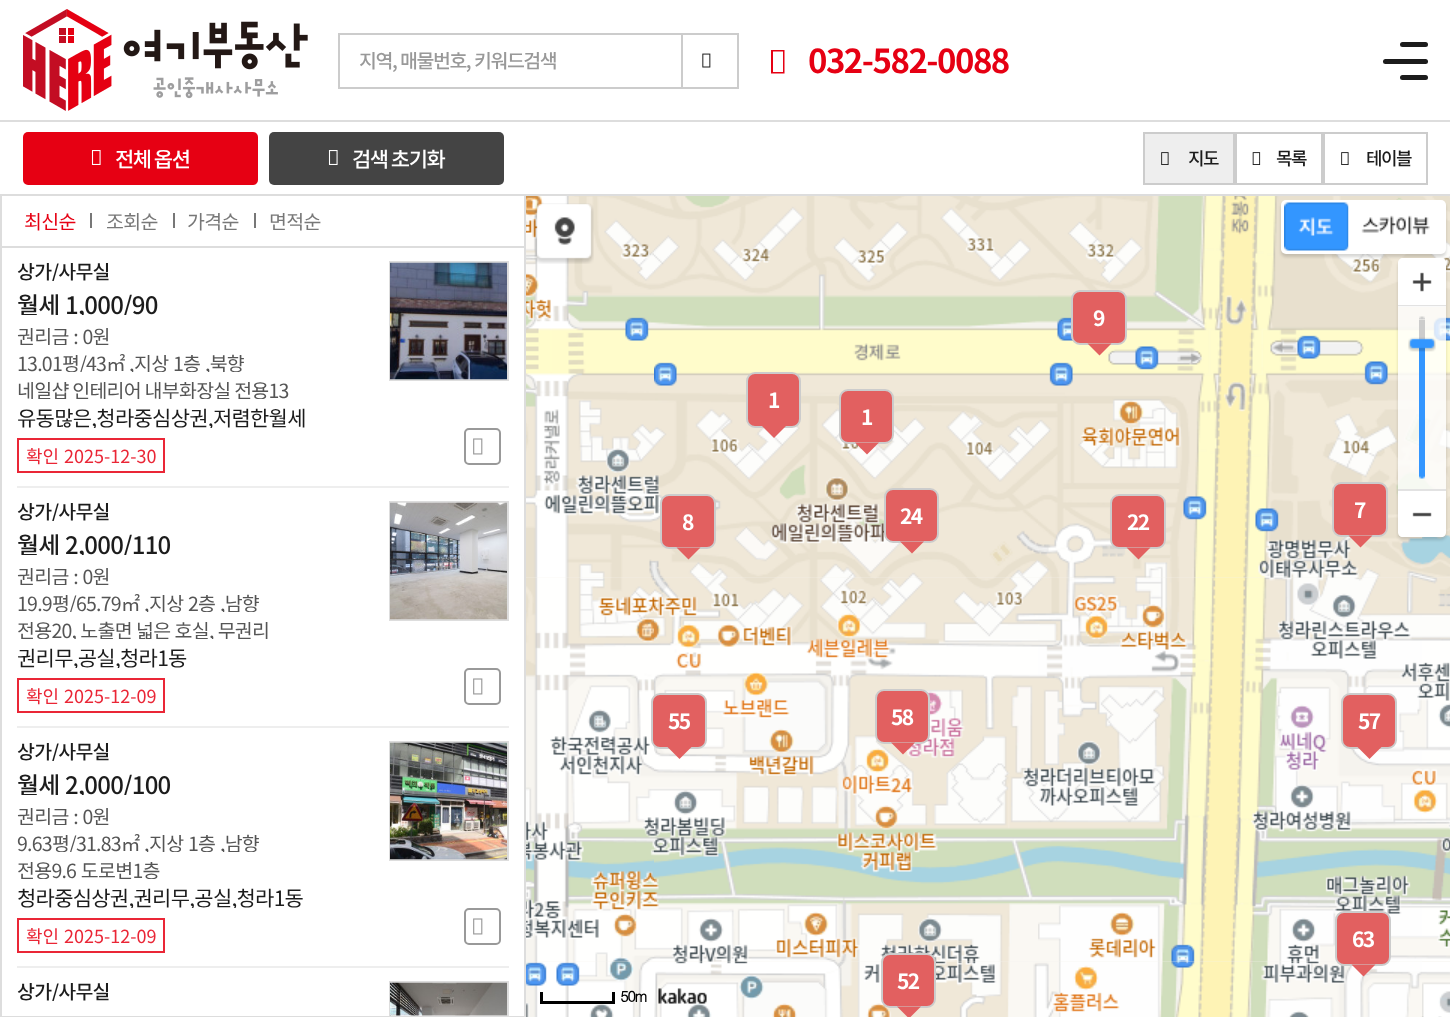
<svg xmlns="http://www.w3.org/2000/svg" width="1450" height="1017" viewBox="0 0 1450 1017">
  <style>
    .t1 { font: 500 19.5px Noto Sans KR; letter-spacing: -1.5px; fill: #999; }
    .t2 { font: bold 33px Noto Sans KR; letter-spacing: -1.5px; fill: #e60013; }
    .t3 { font: 500 21px Noto Sans KR; letter-spacing: -1.5px; fill: #fff; }
    .t4 { font: 500 18px Noto Sans KR; letter-spacing: -1.5px; fill: #1c1c1c; }
    .t5 { font: 19.5px Noto Sans KR; letter-spacing: -0.75px; fill: #e60013; }
    .t6 { font: 19.5px Noto Sans KR; letter-spacing: -0.75px; fill: #777; }
    .t7 { font: 500 19.5px Noto Sans KR; letter-spacing: -0.75px; fill: #1c1c1c; }
    .t8 { font: 500 24px Noto Sans KR; letter-spacing: -0.75px; fill: #1c1c1c; }
    .t9 { font: 19.5px Noto Sans KR; letter-spacing: -0.75px; fill: #555; }
    .t10 { font: 21px Noto Sans KR; letter-spacing: -0.75px; fill: #1c1c1c; }
    .t11 { font: 18px Noto Sans KR; fill: #ea2636; }
    .t12 { font: bold 21px Noto Sans KR; letter-spacing: -1.5px; fill: #fff; }
    .t13 { font: bold 15px Dotum; letter-spacing: -1.5px; fill: #000; }
  </style>
  <defs>
    <clipPath id="clip1"><rect x="17" y="261" width="357" height="20"/></clipPath>
    <clipPath id="clip2"><rect x="17" y="291" width="357" height="24"/></clipPath>
    <clipPath id="clip3"><rect x="17" y="326" width="357" height="19"/></clipPath>
    <clipPath id="clip4"><rect x="17" y="353" width="357" height="19"/></clipPath>
    <clipPath id="clip5"><rect x="17" y="380" width="357" height="19"/></clipPath>
    <clipPath id="clip6"><rect x="17" y="407" width="357" height="21"/></clipPath>
    <clipPath id="clip7"><rect x="17" y="501" width="357" height="20"/></clipPath>
    <clipPath id="clip8"><rect x="17" y="531" width="357" height="24"/></clipPath>
    <clipPath id="clip9"><rect x="17" y="566" width="357" height="19"/></clipPath>
    <clipPath id="clip10"><rect x="17" y="593" width="357" height="19"/></clipPath>
    <clipPath id="clip11"><rect x="17" y="620" width="357" height="19"/></clipPath>
    <clipPath id="clip12"><rect x="17" y="647" width="357" height="21"/></clipPath>
    <clipPath id="clip13"><rect x="17" y="741" width="357" height="20"/></clipPath>
    <clipPath id="clip14"><rect x="17" y="771" width="357" height="24"/></clipPath>
    <clipPath id="clip15"><rect x="17" y="806" width="357" height="19"/></clipPath>
    <clipPath id="clip16"><rect x="17" y="833" width="357" height="19"/></clipPath>
    <clipPath id="clip17"><rect x="17" y="860" width="357" height="19"/></clipPath>
    <clipPath id="clip18"><rect x="17" y="887" width="357" height="21"/></clipPath>
    <clipPath id="clip19"><rect x="17" y="981" width="357" height="20"/></clipPath>
    <clipPath id="clip20"><rect x="2" y="248" width="522" height="768"/></clipPath>
    <clipPath id="clip21"><path d="M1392 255H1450V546H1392ZM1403 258H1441C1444 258 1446 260 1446 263V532C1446 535 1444 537 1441 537H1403C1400 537 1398 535 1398 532V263C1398 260 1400 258 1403 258Z" clip-rule="evenodd"/></clipPath>
  </defs>
  <rect width="100%" height="100%" fill="#fff"/>
  <rect x="0" y="120" width="1450" height="2" fill="#ddd"/>
  <image x="23" y="9" width="285" height="102" href="images/1.png"/>
  <rect x="339" y="34" width="343" height="54" fill="none" stroke="#ccc" stroke-width="2"/>
  <text x="359" y="68" word-spacing="1" class="t1">지역, 매물번호, 키워드검색</text>
  <rect x="683" y="33" width="55" height="2" fill="#ccc"/>
  <rect x="737" y="33" width="2" height="56" fill="#ccc"/>
  <rect x="683" y="87" width="55" height="2" fill="#ccc"/>
  <image x="702" y="53" width="9" height="15" href="images/2.png"/>
  <path d="M771 73.5V50H784.5V73.5ZM773 72H783V51.5H773Z" fill="#e60013"/>
  <text x="808" y="73" class="t2">032-582-0088</text>
  <rect x="1400" y="42" width="28" height="5" rx="2.5" fill="#1c1c1c"/>
  <rect x="1383" y="59" width="45" height="5" rx="2.5" fill="#1c1c1c"/>
  <rect x="1400" y="75" width="28" height="5" rx="2.5" fill="#1c1c1c"/>
  <rect x="524" y="195" width="2" height="822" fill="#ddd"/>
  <rect x="0" y="1016" width="525" height="1" fill="#ddd"/>
  <rect x="0" y="195" width="2" height="822" fill="#ddd"/>
  <rect x="0" y="194" width="1450" height="2" fill="#ddd"/>
  <rect x="23" y="132" width="235" height="53" rx="5" fill="#e60013"/>
  <image x="91" y="150" width="10" height="15" href="images/3.png"/>
  <text x="115" y="167" class="t3">전체 옵션</text>
  <rect x="269" y="132" width="235" height="53" rx="5" fill="#444"/>
  <image x="328" y="150" width="10" height="15" href="images/4.png"/>
  <text x="352" y="167" class="t3">검색 초기화</text>
  <rect x="1144" y="133" width="90" height="51" fill="#eee" stroke="#ccc" stroke-width="2"/>
  <image x="1161" y="152" width="8" height="13" href="images/5.png"/>
  <text x="1188" y="165" class="t4">지도</text>
  <rect x="1236" y="133" width="86" height="51" fill="none" stroke="#ccc" stroke-width="2"/>
  <image x="1252" y="152" width="9" height="13" href="images/6.png"/>
  <text x="1276" y="165" class="t4">목록</text>
  <rect x="1324" y="133" width="103" height="51" fill="none" stroke="#ccc" stroke-width="2"/>
  <image x="1341" y="152" width="8" height="13" href="images/7.png"/>
  <text x="1366" y="165" class="t4">테이블</text>
  <rect x="2" y="246" width="522" height="2" fill="#ddd"/>
  <text x="24" y="229" class="t5">최신순</text>
  <rect x="90" y="213" width="2" height="15" fill="#777"/>
  <text x="106" y="229" class="t6">조회순</text>
  <rect x="173" y="213" width="2" height="15" fill="#777"/>
  <text x="187" y="229" class="t6">가격순</text>
  <rect x="254" y="213" width="2" height="15" fill="#777"/>
  <text x="269" y="229" class="t6">면적순</text>
  <g clip-path="url(#clip1)">
    <text x="17" y="279" class="t7">상가/사무실</text>
  </g>
  <g clip-path="url(#clip2)">
    <text x="17" y="314" class="t8">월세</text>
    <text x="65" y="314" class="t8">1,000/90</text>
  </g>
  <g clip-path="url(#clip3)">
    <text x="17" y="344" word-spacing="1" class="t9">권리금 : 0원</text>
  </g>
  <g clip-path="url(#clip4)">
    <text x="17" y="371" class="t9">13.01평/43㎡</text>
    <text x="129" y="371" class="t9">,</text>
    <text x="134" y="371" word-spacing="1" class="t9">지상 1층</text>
    <text x="205" y="371" class="t9">,북향</text>
  </g>
  <g clip-path="url(#clip5)">
    <text x="17" y="398" class="t9">네일샵 인테리어 내부화장실 전용13</text>
  </g>
  <g clip-path="url(#clip6)">
    <text x="17" y="426" class="t10">유동많은,청라중심상권,저렴한월세</text>
  </g>
  <rect x="18" y="439" width="146" height="33" fill="none" stroke="#ea2636" stroke-width="2"/>
  <text x="26" y="463" class="t11">확인</text>
  <text x="64" y="463" class="t11">2025-12-30</text>
  <rect x="390" y="262" width="118" height="118" fill="none" stroke="#ddd" stroke-width="2"/>
  <image x="390" y="262" width="117" height="118" href="images/8.png"/>
  <rect x="17" y="486" width="492" height="2" fill="#eee"/>
  <rect x="465" y="429" width="35" height="35" rx="4" fill="none" stroke="#999" stroke-width="2"/>
  <image x="473" y="438" width="10" height="17" href="images/9.png"/>
  <g clip-path="url(#clip7)">
    <text x="17" y="519" class="t7">상가/사무실</text>
  </g>
  <g clip-path="url(#clip8)">
    <text x="17" y="554" class="t8">월세</text>
    <text x="65" y="554" class="t8">2,000/110</text>
  </g>
  <g clip-path="url(#clip9)">
    <text x="17" y="584" word-spacing="1" class="t9">권리금 : 0원</text>
  </g>
  <g clip-path="url(#clip10)">
    <text x="17" y="611" class="t9">19.9평/65.79㎡</text>
    <text x="144" y="611" class="t9">,</text>
    <text x="149" y="611" word-spacing="1" class="t9">지상 2층</text>
    <text x="220" y="611" class="t9">,남향</text>
  </g>
  <g clip-path="url(#clip11)">
    <text x="17" y="638" word-spacing="0.5" class="t9">전용20, 노출면 넓은 호실, 무권리</text>
  </g>
  <g clip-path="url(#clip12)">
    <text x="17" y="666" class="t10">권리무,공실,청라1동</text>
  </g>
  <rect x="18" y="679" width="146" height="33" fill="none" stroke="#ea2636" stroke-width="2"/>
  <text x="26" y="703" class="t11">확인</text>
  <text x="64" y="703" class="t11">2025-12-09</text>
  <rect x="390" y="502" width="118" height="118" fill="none" stroke="#ddd" stroke-width="2"/>
  <image x="390" y="502" width="117" height="118" href="images/10.png"/>
  <rect x="17" y="726" width="492" height="2" fill="#eee"/>
  <rect x="465" y="669" width="35" height="35" rx="4" fill="none" stroke="#999" stroke-width="2"/>
  <image x="473" y="678" width="10" height="17" href="images/9.png"/>
  <g clip-path="url(#clip13)">
    <text x="17" y="759" class="t7">상가/사무실</text>
  </g>
  <g clip-path="url(#clip14)">
    <text x="17" y="794" class="t8">월세</text>
    <text x="65" y="794" class="t8">2,000/100</text>
  </g>
  <g clip-path="url(#clip15)">
    <text x="17" y="824" word-spacing="1" class="t9">권리금 : 0원</text>
  </g>
  <g clip-path="url(#clip16)">
    <text x="17" y="851" class="t9">9.63평/31.83㎡</text>
    <text x="144" y="851" class="t9">,</text>
    <text x="149" y="851" word-spacing="1" class="t9">지상 1층</text>
    <text x="220" y="851" class="t9">,남향</text>
  </g>
  <g clip-path="url(#clip17)">
    <text x="17" y="878" word-spacing="1" class="t9">전용9.6 도로변1층</text>
  </g>
  <g clip-path="url(#clip18)">
    <text x="17" y="906" class="t10">청라중심상권,권리무,공실,청라1동</text>
  </g>
  <rect x="18" y="919" width="146" height="33" fill="none" stroke="#ea2636" stroke-width="2"/>
  <text x="26" y="943" class="t11">확인</text>
  <text x="64" y="943" class="t11">2025-12-09</text>
  <rect x="390" y="742" width="118" height="118" fill="none" stroke="#ddd" stroke-width="2"/>
  <image x="390" y="742" width="117" height="118" href="images/11.png"/>
  <rect x="17" y="966" width="492" height="2" fill="#eee"/>
  <rect x="465" y="909" width="35" height="35" rx="4" fill="none" stroke="#999" stroke-width="2"/>
  <image x="473" y="918" width="10" height="17" href="images/9.png"/>
  <g clip-path="url(#clip19)">
    <text x="17" y="999" class="t7">상가/사무실</text>
  </g>
  <g clip-path="url(#clip20)">
    <rect x="390" y="982" width="118" height="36" fill="none" stroke="#ddd" stroke-width="2"/>
  </g>
  <image x="390" y="982" width="117" height="34" href="images/12.png"/>
  <image x="526" y="577" width="924" height="385" href="images/14.png"/>
  <image x="526" y="961" width="128" height="56" href="images/30.png"/>
  <image x="526" y="577" width="128" height="385" href="images/26.png"/>
  <image x="526" y="196" width="128" height="382" href="images/22.png"/>
  <image x="534" y="203" width="60" height="61" href="images/13.png"/>
  <image x="1038" y="961" width="384" height="56" href="images/32.png"/>
  <image x="1038" y="577" width="384" height="385" href="images/28.png"/>
  <image x="1038" y="196" width="384" height="382" href="images/24.png"/>
  <image x="1422" y="577" width="28" height="384" href="images/29.png"/>
  <image x="1422" y="196" width="28" height="382" href="images/25.png"/>
  <rect x="1281" y="203" width="165" height="54" rx="5" fill="#00000026" filter="blur(1.5px)"/>
  <rect x="1281" y="200" width="165" height="54" rx="5" fill="#fff"/>
  <image x="1284" y="202" width="65" height="49" href="images/15.png"/>
  <image x="1348" y="204" width="82" height="45" href="images/16.png"/>
  <g clip-path="url(#clip21)">
    <rect x="1398" y="261" width="48" height="279" rx="5" fill="#00000026" filter="blur(1.5px)"/>
  </g>
  <path d="M1403 258H1441C1444 258 1446 260 1446 263V306H1398V263C1398 260 1400 258 1403 258Z" fill="#fff"/>
  <image x="1412" y="272" width="20" height="20" href="images/17.png"/>
  <rect x="1398" y="305" width="48" height="2" fill="#e2e2e2"/>
  <rect x="1398" y="306" width="48" height="183" fill="#ffffffcc"/>
  <rect x="1419" y="347" width="6" height="129" fill="#3396ff"/>
  <image x="1419" y="316" width="6" height="4" href="images/18.png"/>
  <image x="1419" y="476" width="6" height="3" href="images/19.png"/>
  <rect x="1419" y="320" width="6" height="24" fill="#ccc"/>
  <image x="1408" y="337" width="28" height="15" href="images/20.png"/>
  <path d="M1398 489H1446V532C1446 535 1444 537 1441 537H1403C1400 537 1398 535 1398 532Z" fill="#fff"/>
  <image x="1412" y="512" width="20" height="5" href="images/21.png"/>
  <rect x="1398" y="489" width="48" height="2" fill="#e2e2e2"/>
  <image x="654" y="961" width="384" height="56" href="images/31.png"/>
  <image x="654" y="577" width="384" height="385" href="images/27.png"/>
  <image x="654" y="196" width="384" height="382" href="images/23.png"/>
  <image x="1422" y="961" width="28" height="56" href="images/33.png"/>
  <rect x="1072" y="291" width="54" height="53" rx="8" fill="#e26060" stroke="#ccc" stroke-width="2"/>
  <text x="1093" y="326" class="t12">9</text>
  <path d="M1087.5 343.5H1111.5L1099.5 355.5Z" fill="#e26060"/>
  <rect x="747" y="373" width="53" height="54" rx="8" fill="#e26060" stroke="#ccc" stroke-width="2"/>
  <text x="768" y="408" class="t12">1</text>
  <path d="M762 426H786L774 438Z" fill="#e26060"/>
  <rect x="840" y="390" width="53" height="53" rx="8" fill="#e26060" stroke="#ccc" stroke-width="2"/>
  <text x="861" y="425" class="t12">1</text>
  <path d="M855 442.5H879L867 454.5Z" fill="#e26060"/>
  <rect x="661" y="495" width="54" height="53" rx="8" fill="#e26060" stroke="#ccc" stroke-width="2"/>
  <text x="682" y="530" class="t12">8</text>
  <path d="M676.5 547.5H700.5L688.5 559.5Z" fill="#e26060"/>
  <rect x="885" y="489" width="53" height="53" rx="8" fill="#e26060" stroke="#ccc" stroke-width="2"/>
  <text x="900" y="524" class="t12">24</text>
  <path d="M900 541.5H924L912 553.5Z" fill="#e26060"/>
  <rect x="1111" y="495" width="54" height="53" rx="8" fill="#e26060" stroke="#ccc" stroke-width="2"/>
  <text x="1127" y="530" class="t12">22</text>
  <path d="M1126.5 547.5H1150.5L1138.5 559.5Z" fill="#e26060"/>
  <rect x="1333" y="483" width="54" height="53" rx="8" fill="#e26060" stroke="#ccc" stroke-width="2"/>
  <text x="1354" y="518" class="t12">7</text>
  <path d="M1348.5 535.5H1372.5L1360.5 547.5Z" fill="#e26060"/>
  <rect x="652" y="694" width="54" height="54" rx="8" fill="#e26060" stroke="#ccc" stroke-width="2"/>
  <text x="668" y="729" class="t12">55</text>
  <path d="M667.5 747H691.5L679.5 759Z" fill="#e26060"/>
  <rect x="876" y="690" width="53" height="53" rx="8" fill="#e26060" stroke="#ccc" stroke-width="2"/>
  <text x="891" y="725" class="t12">58</text>
  <path d="M891 742.5H915L903 754.5Z" fill="#e26060"/>
  <rect x="1342" y="694" width="54" height="54" rx="8" fill="#e26060" stroke="#ccc" stroke-width="2"/>
  <text x="1358" y="729" class="t12">57</text>
  <path d="M1357.5 747H1381.5L1369.5 759Z" fill="#e26060"/>
  <rect x="1336" y="912" width="54" height="53" rx="8" fill="#e26060" stroke="#ccc" stroke-width="2"/>
  <text x="1352" y="947" class="t12">63</text>
  <path d="M1351.5 964.5H1375.5L1363.5 976.5Z" fill="#e26060"/>
  <rect x="882" y="954" width="53" height="53" rx="8" fill="#e26060" stroke="#ccc" stroke-width="2"/>
  <text x="897" y="989" class="t12">52</text>
  <path d="M897 1006.5H921L909 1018.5Z" fill="#e26060"/>
  <rect x="612" y="992" width="3" height="12" fill="#000"/>
  <rect x="540" y="1001" width="75" height="3" fill="#000"/>
  <rect x="540" y="992" width="3" height="12" fill="#000"/>
  <text x="620" y="1002" class="t13">50m</text>
  <image x="658" y="988" width="49" height="16" href="images/34.png"/>
</svg>
